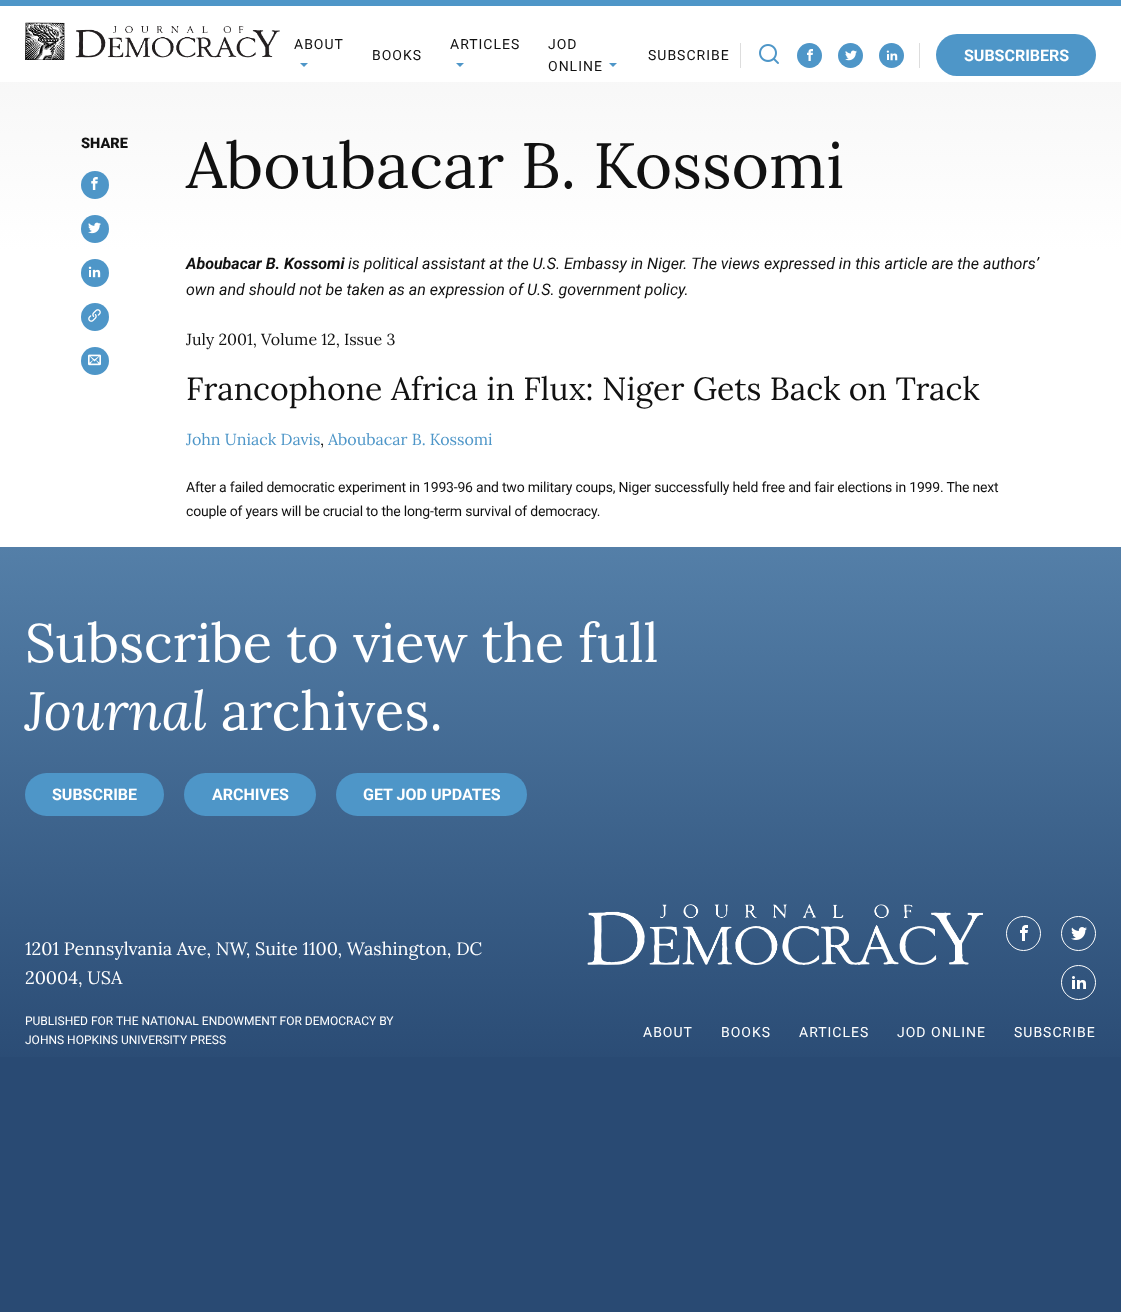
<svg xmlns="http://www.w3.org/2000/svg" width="1121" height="1312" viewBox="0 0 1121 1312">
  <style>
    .t1 { font: 14px Roboto; letter-spacing: 1px; fill: #111; }
    .t2 { font: bold 16px Roboto; fill: #fff; }
    .t3 { font: 900 14.5px Roboto; fill: #111; }
    .t4 { font: 64px Lora; fill: #111; }
    .t5 { font: italic bold 16px Roboto; fill: #111; }
    .t6 { font: italic 16px Roboto; fill: #111; }
    .t7 { font: 16px Lora; fill: #111; }
    .t8 { font: 32px Lora; fill: #111; }
    .t9 { font: 16px Lora; fill: #4e96c8; }
    .t10 { font: 14px Roboto; letter-spacing: -0.2px; fill: #111; }
    .t11 { font: 54px Lora; fill: #fff; }
    .t12 { font: italic 54px Lora; fill: #fff; }
    .t13 { font: 18px Lora; fill: #fff; }
    .t14 { font: 12px Roboto; fill: #fff; }
    .t15 { font: 14px Roboto; letter-spacing: 1px; fill: #fff; }
  </style>
  <defs>
    <linearGradient id="g1" gradientUnits="userSpaceOnUse" x1="561" y1="0" x2="561" y2="250"><stop offset="0" stop-color="#f4f4f4"/><stop offset="1" stop-color="#fff"/></linearGradient>
    <linearGradient id="g2" gradientUnits="userSpaceOnUse" x1="561" y1="547" x2="561" y2="1082"><stop offset="0" stop-color="#547fa8"/><stop offset="1" stop-color="#294a73"/></linearGradient>
  </defs>
  <rect width="100%" height="100%" fill="#294a73"/>
  <rect x="0" y="250" width="1121" height="297" fill="#fff"/>
  <rect x="0" y="6" width="1121" height="76" fill="#fff"/>
  <rect x="0" y="0" width="1121" height="6" fill="#4e96c8"/>
  <image x="25" y="22" width="255" height="38" href="images/1.png"/>
  <text x="294" y="49" class="t1">ABOUT</text>
  <path d="M300 63H308L304 67Z" fill="#4e96c8"/>
  <text x="372" y="60" class="t1">BOOKS</text>
  <text x="450" y="49" class="t1">ARTICLES</text>
  <path d="M456 63H464L460 67Z" fill="#4e96c8"/>
  <text x="548" y="49" class="t1">JOD</text>
  <text x="548" y="71" class="t1">ONLINE</text>
  <path d="M609 63H617L613 67Z" fill="#4e96c8"/>
  <text x="648" y="60" class="t1">SUBSCRIBE</text>
  <rect x="740" y="43" width="1" height="25" fill="#ddd"/>
  <image x="759" y="44" width="20" height="20" href="images/2.png"/>
  <circle cx="809.5" cy="55.5" r="12.5" fill="#4e96c8"/>
  <image x="807" y="49" width="6" height="12" href="images/3.png"/>
  <circle cx="850.5" cy="55.5" r="12.5" fill="#4e96c8"/>
  <image x="845" y="50" width="12" height="11" href="images/4.png"/>
  <circle cx="891.5" cy="55.5" r="12.5" fill="#4e96c8"/>
  <image x="886" y="50" width="12" height="11" href="images/5.png"/>
  <rect x="919" y="43" width="1" height="25" fill="#ddd"/>
  <rect x="936" y="34" width="160" height="42" rx="21" fill="#4e96c8"/>
  <text x="964" y="61" class="t2">SUBSCRIBERS</text>
  <rect x="0" y="82" width="1121" height="168" fill="url(#g1)"/>
  <text x="81" y="148" class="t3">SHARE</text>
  <circle cx="95" cy="185" r="14" fill="#4e96c8"/>
  <image x="91" y="177" width="7" height="13" href="images/6.png"/>
  <circle cx="95" cy="229" r="14" fill="#4e96c8"/>
  <image x="88" y="222" width="13" height="12" href="images/7.png"/>
  <circle cx="95" cy="273" r="14" fill="#4e96c8"/>
  <image x="88" y="266" width="13" height="12" href="images/8.png"/>
  <circle cx="95" cy="317" r="14" fill="#4e96c8"/>
  <image x="88" y="309" width="13" height="13" href="images/9.png"/>
  <circle cx="95" cy="361" r="14" fill="#4e96c8"/>
  <image x="88" y="354" width="13" height="12" href="images/10.png"/>
  <text x="186" y="188" class="t4">Aboubacar B. Kossomi</text>
  <text x="186" y="269" class="t5">Aboubacar B. Kossomi</text>
  <text x="348" y="269" class="t6">is political assistant at the U.S. Embassy in Niger. The views expressed in this article are the authors’</text>
  <text x="186" y="295" class="t6">own and should not be taken as an expression of U.S. government policy.</text>
  <text x="186" y="345" class="t7">July 2001, Volume 12, Issue 3</text>
  <text x="186" y="400" class="t8">Francophone Africa in Flux: Niger Gets Back on Track</text>
  <text x="186" y="445" class="t9">John Uniack Davis</text>
  <text x="320" y="445" class="t7">,</text>
  <text x="328" y="445" class="t9">Aboubacar B. Kossomi</text>
  <text x="186" y="492" class="t10">After a failed democratic experiment in 1993-96 and two military coups, Niger successfully held free and fair elections in 1999. The next</text>
  <text x="186" y="516" class="t10">couple of years will be crucial to the long-term survival of democracy.</text>
  <rect x="0" y="547" width="1121" height="510" fill="url(#g2)"/>
  <text x="25" y="662" class="t11">Subscribe to view the full</text>
  <text x="25" y="730" class="t12">Journal</text>
  <text x="221" y="730" class="t11">archives.</text>
  <rect x="25" y="773" width="139" height="43" rx="21.5" fill="#4e96c8"/>
  <text x="52" y="800" class="t2">SUBSCRIBE</text>
  <rect x="184" y="773" width="132" height="43" rx="21.5" fill="#4e96c8"/>
  <text x="212" y="800" class="t2">ARCHIVES</text>
  <rect x="336" y="773" width="191" height="43" rx="21.5" fill="#4e96c8"/>
  <text x="363" y="800" class="t2">GET JOD UPDATES</text>
  <text x="25" y="955" class="t13">1201 Pennsylvania Ave, NW, Suite 1100, Washington, DC</text>
  <text x="25" y="984" class="t13">20004, USA</text>
  <text x="25" y="1025" class="t14">PUBLISHED FOR THE NATIONAL ENDOWMENT FOR DEMOCRACY BY</text>
  <text x="25" y="1044" class="t14">JOHNS HOPKINS UNIVERSITY PRESS</text>
  <image x="587" y="904" width="396" height="61" href="images/11.png"/>
  <circle cx="1023.5" cy="933.5" r="17" fill="none" stroke="#fff"/>
  <image x="1020" y="925" width="8" height="16" href="images/12.png"/>
  <circle cx="1078.5" cy="933.5" r="17" fill="none" stroke="#fff"/>
  <image x="1071" y="927" width="16" height="13" href="images/13.png"/>
  <circle cx="1078.5" cy="982.5" r="17" fill="none" stroke="#fff"/>
  <image x="1072" y="976" width="14" height="13" href="images/14.png"/>
  <text x="643" y="1037" class="t15">ABOUT</text>
  <text x="721" y="1037" class="t15">BOOKS</text>
  <text x="799" y="1037" class="t15">ARTICLES</text>
  <text x="897" y="1037" class="t15">JOD ONLINE</text>
  <text x="1014" y="1037" class="t15">SUBSCRIBE</text>
</svg>
